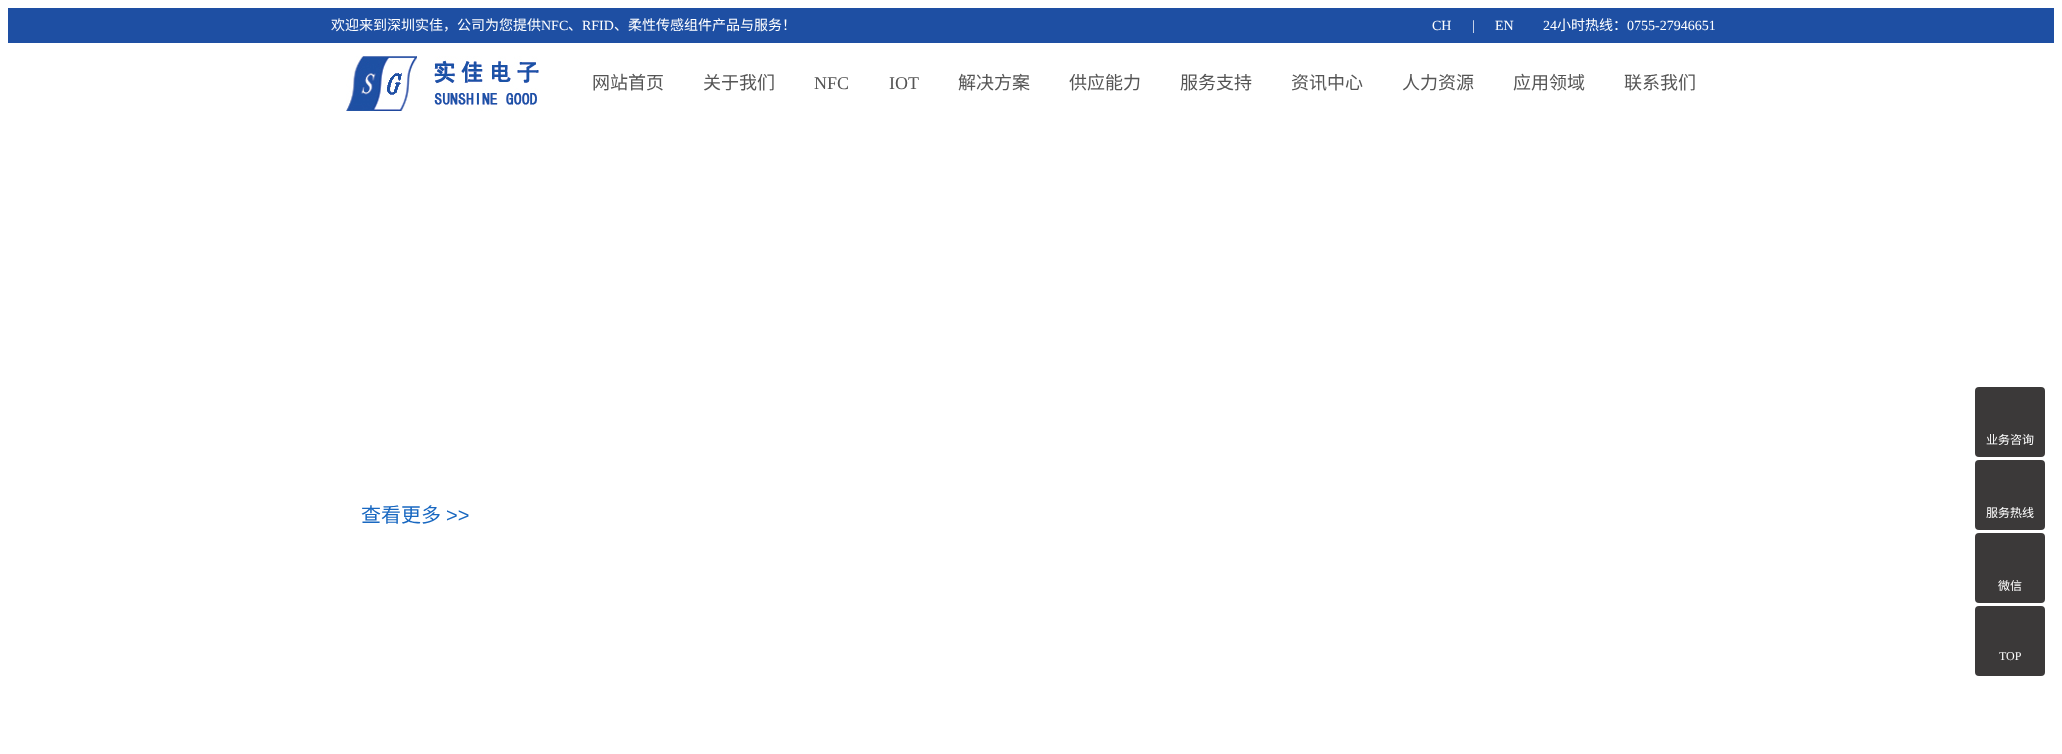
<svg xmlns="http://www.w3.org/2000/svg" width="2062" height="754" viewBox="0 0 2062 754">
  <style>
    .t1 { font: 14px Noto Sans CJK SC; fill: #fff; }
    .t2 { font: 14px Liberation Serif; fill: #fff; }
    .t3 { font: 18px Noto Sans CJK SC; fill: #555; }
    .t4 { font: 18px Liberation Serif; fill: #555; }
    .t5 { font: 20px Noto Sans CJK SC; fill: #1968c1; }
    .t6 { font: 20px Liberation Sans; fill: #1968c1; }
    .t7 { font: 12px Noto Sans CJK SC; fill: #fff; }
    .t8 { font: 12px Liberation Serif; fill: #fff; }
  </style>
  <rect width="100%" height="100%" fill="#fff"/>
  <rect x="8" y="8" width="2046" height="35" fill="#1e4fa3"/>
  <text x="331" y="30" class="t1">欢迎来到深圳实佳，公司为您提供</text>
  <text x="541" y="30" class="t2">NFC</text>
  <text x="568" y="30" class="t1">、</text>
  <text x="582" y="30" class="t2">RFID</text>
  <text x="614" y="30" class="t1">、柔性传感组件产品与服务！</text>
  <text x="1432" y="30" class="t2">CH</text>
  <text x="1472" y="30" class="t2">|</text>
  <text x="1495" y="30" class="t2">EN</text>
  <text x="1543" y="30" class="t2">24</text>
  <text x="1557" y="30" class="t1">小时热线：</text>
  <text x="1627" y="30" class="t2">0755-27946651</text>
  <image x="346" y="56" width="193" height="55" href="images/1.png"/>
  <text x="592" y="89" class="t3">网站首页</text>
  <text x="703" y="89" class="t3">关于我们</text>
  <text x="814" y="89" class="t4">NFC</text>
  <text x="889" y="89" class="t4">IOT</text>
  <text x="958" y="89" class="t3">解决方案</text>
  <text x="1069" y="89" class="t3">供应能力</text>
  <text x="1180" y="89" class="t3">服务支持</text>
  <text x="1291" y="89" class="t3">资讯中心</text>
  <text x="1402" y="89" class="t3">人力资源</text>
  <text x="1513" y="89" class="t3">应用领域</text>
  <text x="1624" y="89" class="t3">联系我们</text>
  <text x="361" y="522" class="t5">查看更多</text>
  <text x="446" y="522" class="t6">&gt;&gt;</text>
  <rect x="1975" y="387" width="70" height="70" rx="4" fill="#3b3939"/>
  <text x="1986" y="444" class="t7">业务咨询</text>
  <rect x="1975" y="460" width="70" height="70" rx="4" fill="#3b3939"/>
  <text x="1986" y="517" class="t7">服务热线</text>
  <rect x="1975" y="533" width="70" height="70" rx="4" fill="#3b3939"/>
  <text x="1998" y="590" class="t7">微信</text>
  <rect x="1975" y="606" width="70" height="70" rx="4" fill="#3b3939"/>
  <text x="1999" y="660" class="t8">TOP</text>
</svg>
